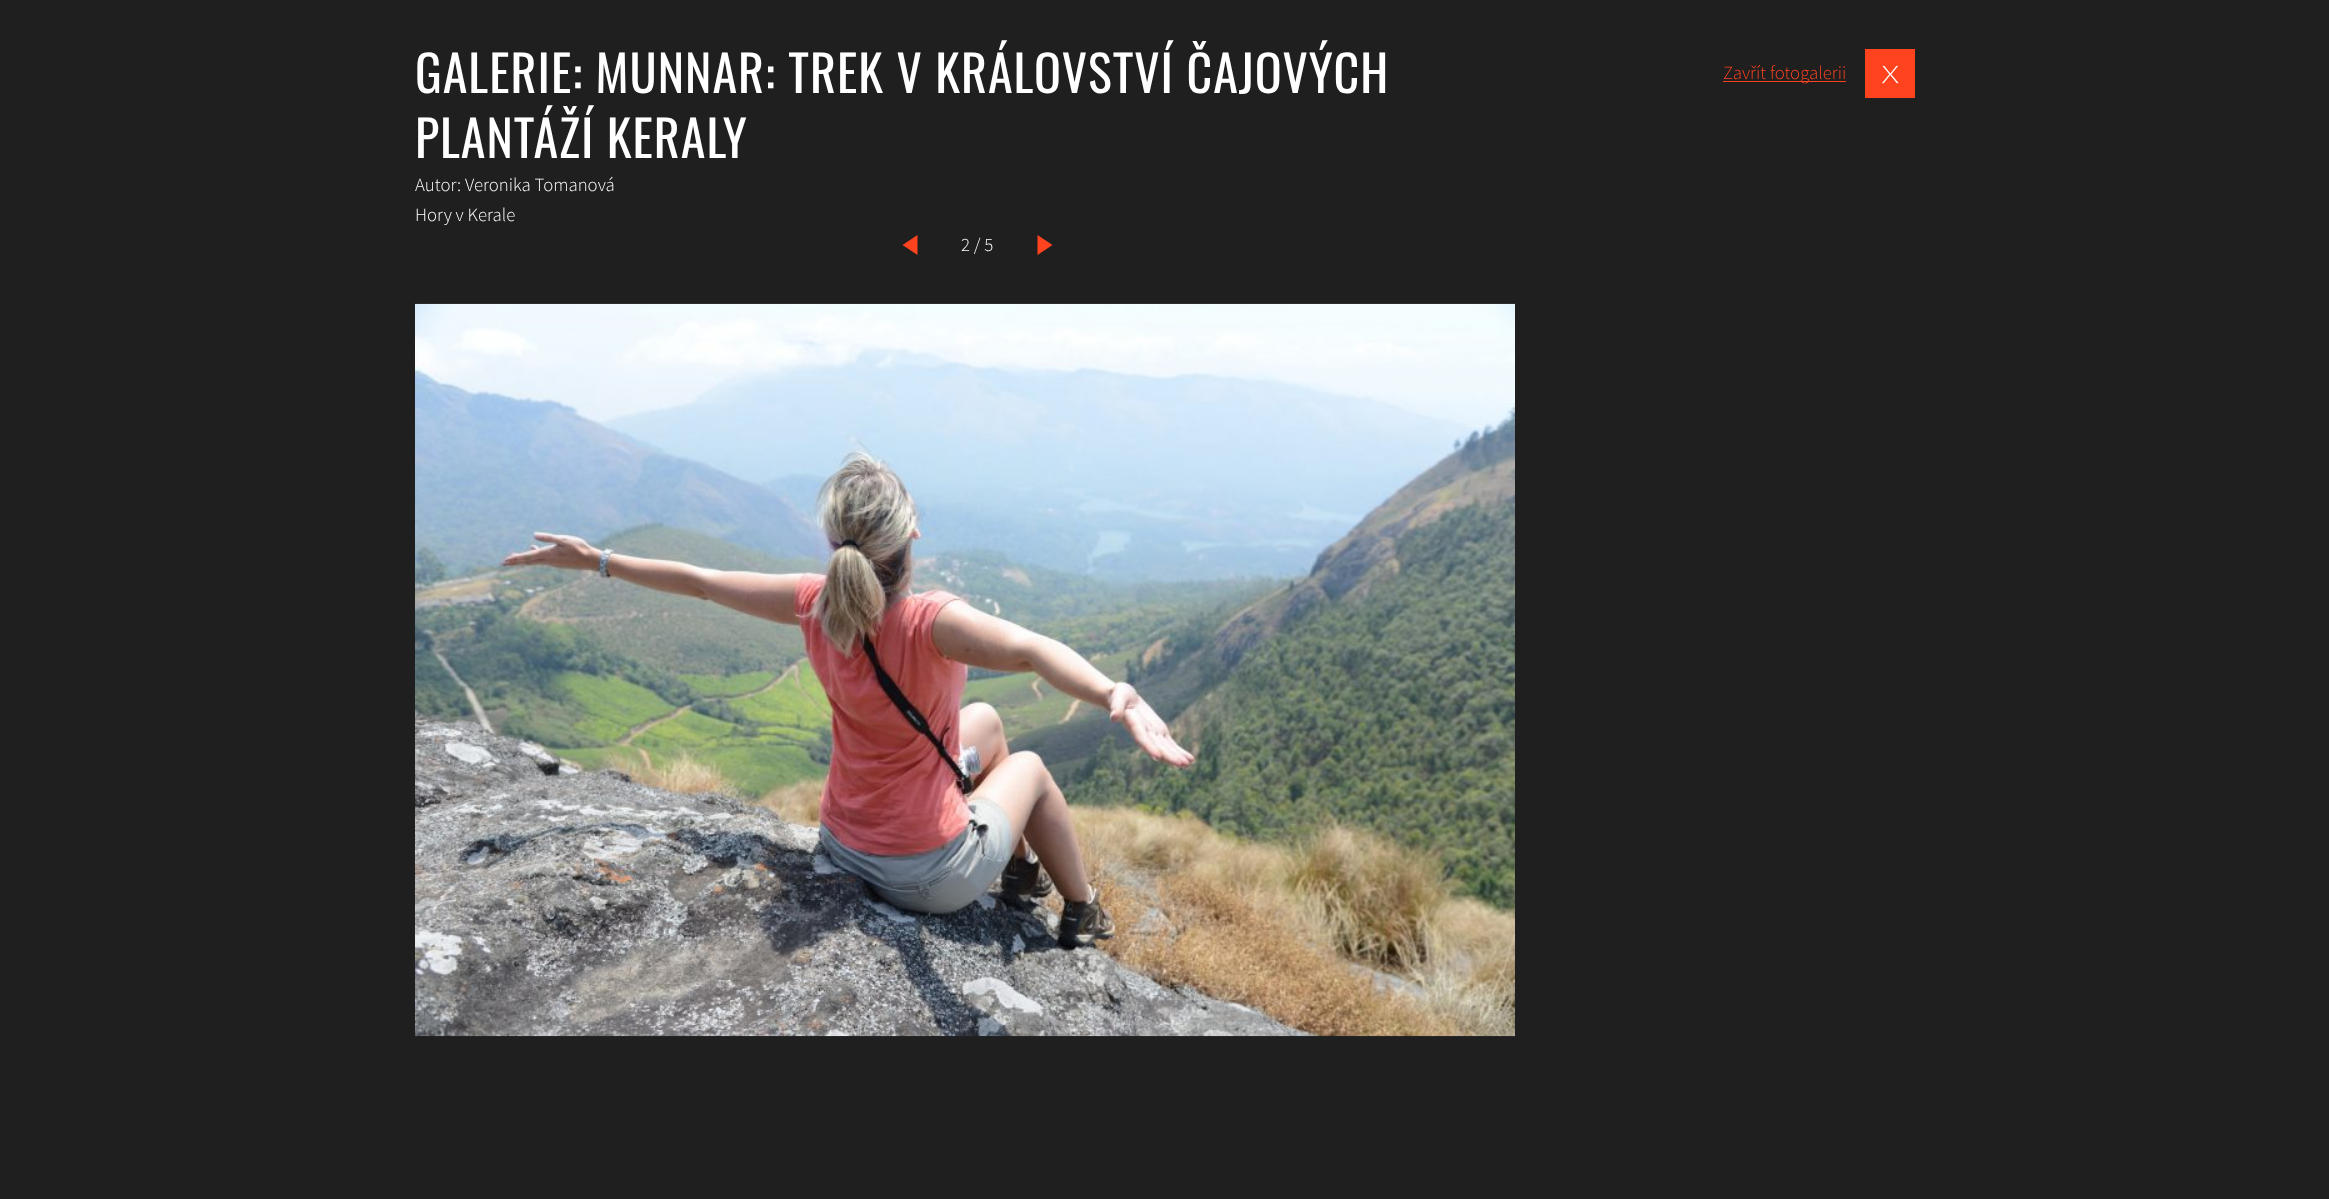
<svg xmlns="http://www.w3.org/2000/svg" width="2329" height="1199" viewBox="0 0 2329 1199">
  <style>
    .t1 { font: 50px Oswald; letter-spacing: 1px; fill: #fff; }
    .t2 { font: 300 18.75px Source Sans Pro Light; fill: #fff; }
    .t3 { font: 300 18.75px Source Sans Pro Light; fill: #ff431f; }
  </style>
  <rect width="100%" height="100%" fill="#1f1f1f"/>
  <text x="415" y="93" class="t1">GALERIE: MUNNAR: TREK V KRÁLOVSTVÍ ČAJOVÝCH</text>
  <text x="415" y="158" class="t1">PLANTÁŽÍ KERALY</text>
  <text x="415" y="191" class="t2">Autor: Veronika Tomanová</text>
  <text x="415" y="221" class="t2">Hory v Kerale</text>
  <path d="M917.5 235V255L902.5 245Z" fill="#ff431f"/>
  <text x="961" y="251" class="t2">2 / 5</text>
  <path d="M1037.5 255V235L1052.5 245Z" fill="#ff431f"/>
  <rect x="1723" y="81" width="123" height="1" fill="#ff431f"/>
  <text x="1723" y="79" class="t3">Zavřít fotogalerii</text>
  <rect x="1865" y="49" width="50" height="49" fill="#ff431f"/>
  <image x="1882" y="65" width="17" height="19" href="images/1.png"/>
  <image x="415" y="303" width="1100" height="734" href="images/2.png"/>
</svg>
